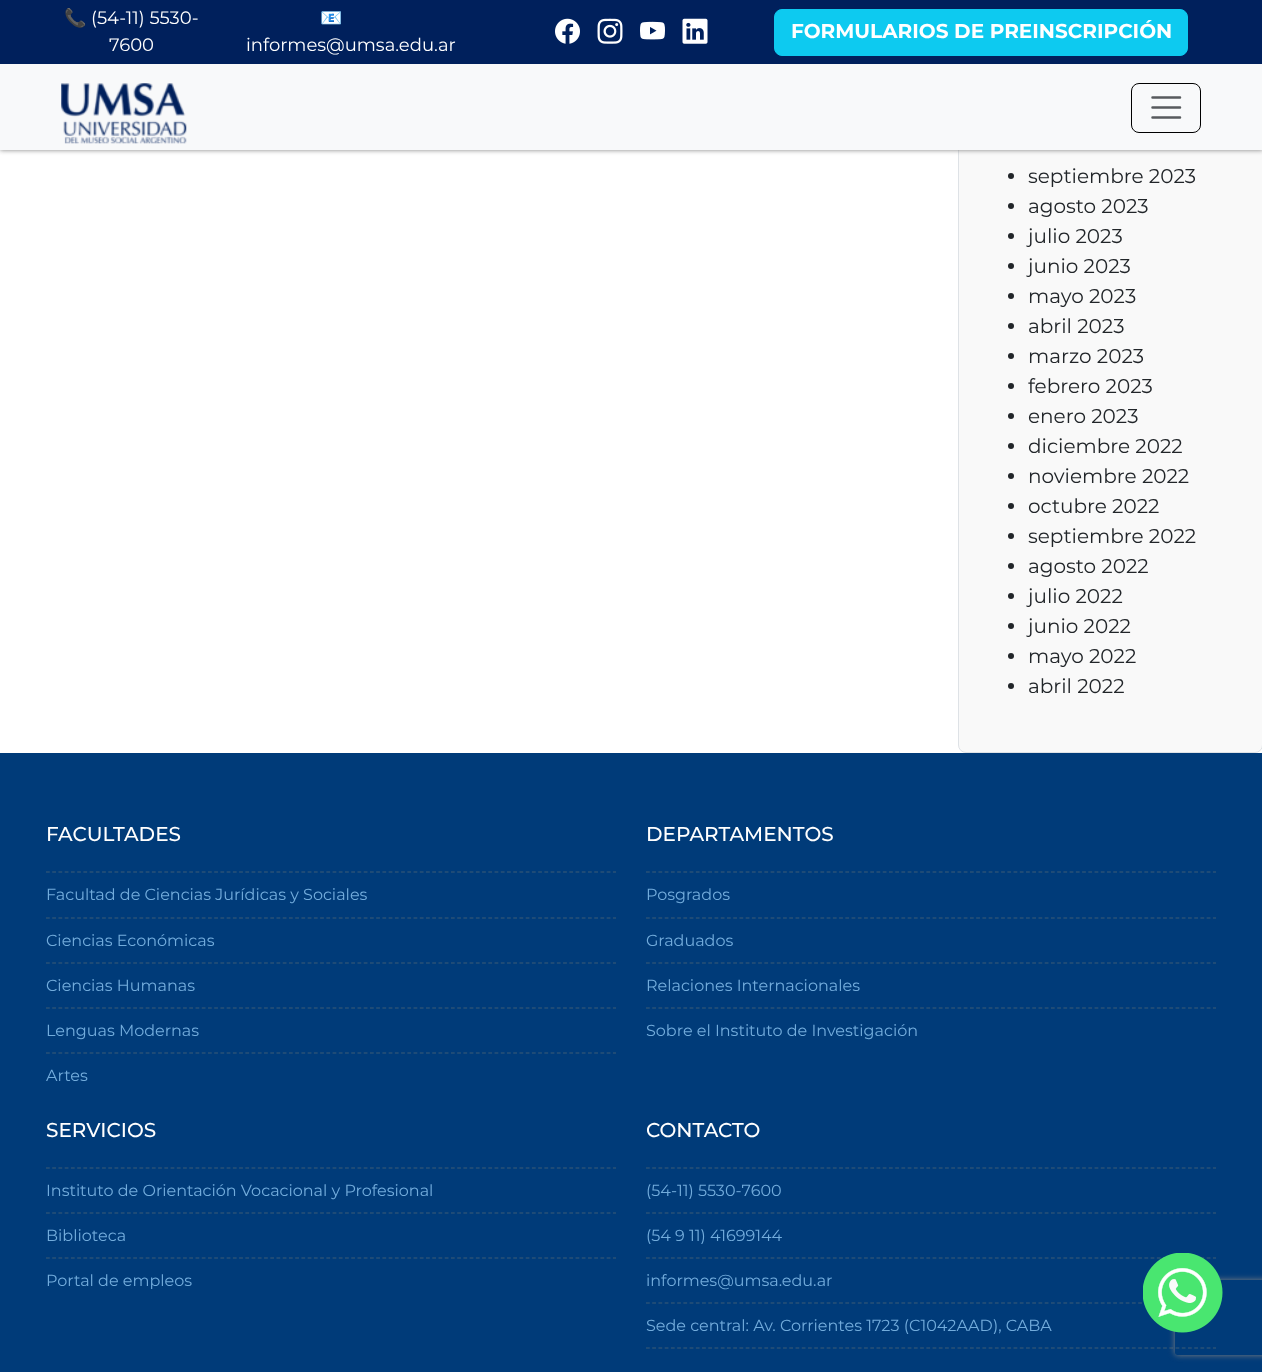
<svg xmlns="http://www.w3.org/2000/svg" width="1262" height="1372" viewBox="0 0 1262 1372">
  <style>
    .t1 { font: 18px Noto Color Emoji; fill: #fff; }
    .t2 { font: 18px Montserrat; fill: #fff; }
    .t3 { font: bold 20px Montserrat; fill: #fff; }
    .t4 { font: 20px Montserrat; fill: #212529; }
    .t5 { font: 500 20px Montserrat; fill: #fff; }
    .t6 { font: 16px Montserrat; fill: #72acdc; }
  </style>
  <defs>
    <clipPath id="clip1"><path d="M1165 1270H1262V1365H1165ZM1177.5 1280H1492.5C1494 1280 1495 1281 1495 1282.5V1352.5C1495 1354 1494 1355 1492.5 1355H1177.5C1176 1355 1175 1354 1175 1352.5V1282.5C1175 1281 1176 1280 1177.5 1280Z" clip-rule="evenodd"/></clipPath>
  </defs>
  <rect width="100%" height="100%" fill="#fff"/>
  <rect x="958.5" y="-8.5" width="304" height="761" rx="7.5" fill="#f9f9f9" stroke="#dee2e6"/>
  <rect x="0" y="0" width="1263" height="150" fill="#808080" filter="blur(2.5px)"/>
  <rect x="0" y="64" width="1262" height="86" fill="#f8f9fa"/>
  <rect x="0" y="0" width="1262" height="64" fill="#00205c"/>
  <text x="64" y="24" class="t1">📞</text>
  <text x="91" y="24" class="t2">(54-11) 5530-</text>
  <text x="109" y="51" class="t2">7600</text>
  <text x="320" y="24" class="t1">📧</text>
  <text x="246" y="51" class="t2">informes@umsa.edu.ar</text>
  <image x="555" y="18" width="25" height="26" href="images/1.png"/>
  <image x="597" y="18" width="26" height="26" href="images/2.png"/>
  <image x="640" y="21" width="25" height="19" href="images/3.png"/>
  <image x="682" y="18" width="26" height="26" href="images/4.png"/>
  <rect x="774.5" y="9.5" width="413" height="46" rx="7.5" fill="#0dcaf0" stroke="#0dcaf0"/>
  <text x="791" y="38" class="t3">FORMULARIOS DE PREINSCRIPCIÓN</text>
  <image x="61" y="83" width="126" height="61" href="images/5.png"/>
  <rect x="1131.5" y="83.5" width="69" height="49" rx="7.5" fill="none" stroke="#000"/>
  <path d="M1152.5 97.5H1180M1152.5 107.5H1180M1152.5 117.5H1180" fill="none" stroke="#575a5d" stroke-width="2.5" stroke-linecap="round"/>
  <circle cx="1011" cy="176" r="3" fill="#212529"/>
  <text x="1028" y="183" class="t4">septiembre 2023</text>
  <circle cx="1011" cy="206" r="3" fill="#212529"/>
  <text x="1028" y="213" class="t4">agosto 2023</text>
  <circle cx="1011" cy="236" r="3" fill="#212529"/>
  <text x="1028" y="243" class="t4">julio 2023</text>
  <circle cx="1011" cy="266" r="3" fill="#212529"/>
  <text x="1028" y="273" class="t4">junio 2023</text>
  <circle cx="1011" cy="296" r="3" fill="#212529"/>
  <text x="1028" y="303" class="t4">mayo 2023</text>
  <circle cx="1011" cy="326" r="3" fill="#212529"/>
  <text x="1028" y="333" class="t4">abril 2023</text>
  <circle cx="1011" cy="356" r="3" fill="#212529"/>
  <text x="1028" y="363" class="t4">marzo 2023</text>
  <circle cx="1011" cy="386" r="3" fill="#212529"/>
  <text x="1028" y="393" class="t4">febrero 2023</text>
  <circle cx="1011" cy="416" r="3" fill="#212529"/>
  <text x="1028" y="423" class="t4">enero 2023</text>
  <circle cx="1011" cy="446" r="3" fill="#212529"/>
  <text x="1028" y="453" class="t4">diciembre 2022</text>
  <circle cx="1011" cy="476" r="3" fill="#212529"/>
  <text x="1028" y="483" class="t4">noviembre 2022</text>
  <circle cx="1011" cy="506" r="3" fill="#212529"/>
  <text x="1028" y="513" class="t4">octubre 2022</text>
  <circle cx="1011" cy="536" r="3" fill="#212529"/>
  <text x="1028" y="543" class="t4">septiembre 2022</text>
  <circle cx="1011" cy="566" r="3" fill="#212529"/>
  <text x="1028" y="573" class="t4">agosto 2022</text>
  <circle cx="1011" cy="596" r="3" fill="#212529"/>
  <text x="1028" y="603" class="t4">julio 2022</text>
  <circle cx="1011" cy="626" r="3" fill="#212529"/>
  <text x="1028" y="633" class="t4">junio 2022</text>
  <circle cx="1011" cy="656" r="3" fill="#212529"/>
  <text x="1028" y="663" class="t4">mayo 2022</text>
  <circle cx="1011" cy="686" r="3" fill="#212529"/>
  <text x="1028" y="693" class="t4">abril 2022</text>
  <rect x="0" y="753" width="1262" height="619" fill="#003b79"/>
  <text x="46" y="841" class="t5">FACULTADES</text>
  <path d="M46 872H616" fill="none" stroke="#3c5d77" stroke-width="1.2" stroke-dasharray="3.75 2.48"/>
  <text x="46" y="900" class="t6">Facultad de Ciencias Jurídicas y Sociales</text>
  <path d="M46 918H616" fill="none" stroke="#3c5d77" stroke-width="1.2" stroke-dasharray="3.75 2.48"/>
  <text x="46" y="946" class="t6">Ciencias Económicas</text>
  <path d="M46 963H616" fill="none" stroke="#3c5d77" stroke-width="1.2" stroke-dasharray="3.75 2.48"/>
  <text x="46" y="991" class="t6">Ciencias Humanas</text>
  <path d="M46 1008H616" fill="none" stroke="#3c5d77" stroke-width="1.2" stroke-dasharray="3.75 2.48"/>
  <text x="46" y="1036" class="t6">Lenguas Modernas</text>
  <path d="M46 1053H616" fill="none" stroke="#3c5d77" stroke-width="1.2" stroke-dasharray="3.75 2.48"/>
  <text x="46" y="1081" class="t6">Artes</text>
  <text x="646" y="841" class="t5">DEPARTAMENTOS</text>
  <path d="M646 872H1216" fill="none" stroke="#3c5d77" stroke-width="1.2" stroke-dasharray="3.75 2.48"/>
  <text x="646" y="900" class="t6">Posgrados</text>
  <path d="M646 918H1216" fill="none" stroke="#3c5d77" stroke-width="1.2" stroke-dasharray="3.75 2.48"/>
  <text x="646" y="946" class="t6">Graduados</text>
  <path d="M646 963H1216" fill="none" stroke="#3c5d77" stroke-width="1.2" stroke-dasharray="3.75 2.48"/>
  <text x="646" y="991" class="t6">Relaciones Internacionales</text>
  <path d="M646 1008H1216" fill="none" stroke="#3c5d77" stroke-width="1.2" stroke-dasharray="3.75 2.48"/>
  <text x="646" y="1036" class="t6">Sobre el Instituto de Investigación</text>
  <text x="46" y="1137" class="t5">SERVICIOS</text>
  <path d="M46 1168H616" fill="none" stroke="#3c5d77" stroke-width="1.2" stroke-dasharray="3.75 2.48"/>
  <text x="46" y="1196" class="t6">Instituto de Orientación Vocacional y Profesional</text>
  <path d="M46 1213H616" fill="none" stroke="#3c5d77" stroke-width="1.2" stroke-dasharray="3.75 2.48"/>
  <text x="46" y="1241" class="t6">Biblioteca</text>
  <path d="M46 1258H616" fill="none" stroke="#3c5d77" stroke-width="1.2" stroke-dasharray="3.75 2.48"/>
  <text x="46" y="1286" class="t6">Portal de empleos</text>
  <text x="646" y="1137" class="t5">CONTACTO</text>
  <path d="M646 1168H1216" fill="none" stroke="#3c5d77" stroke-width="1.2" stroke-dasharray="3.75 2.48"/>
  <text x="646" y="1196" class="t6">(54-11) 5530-7600</text>
  <path d="M646 1213H1216" fill="none" stroke="#3c5d77" stroke-width="1.2" stroke-dasharray="3.75 2.48"/>
  <text x="646" y="1241" class="t6">(54 9 11) 41699144</text>
  <path d="M646 1258H1216" fill="none" stroke="#3c5d77" stroke-width="1.2" stroke-dasharray="3.75 2.48"/>
  <text x="646" y="1286" class="t6">informes@umsa.edu.ar</text>
  <path d="M646 1303H1216" fill="none" stroke="#3c5d77" stroke-width="1.2" stroke-dasharray="3.75 2.48"/>
  <text x="646" y="1331" class="t6">Sede central: Av. Corrientes 1723 (C1042AAD), CABA</text>
  <path d="M646 1348H1216" fill="none" stroke="#3c5d77" stroke-width="1.2" stroke-dasharray="3.75 2.48"/>
  <g clip-path="url(#clip1)">
    <rect x="1175" y="1280" width="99" height="75" rx="2.5" fill="#808080" filter="blur(3px)"/>
  </g>
  <image x="1143" y="1253" width="80" height="80" href="images/6.png"/>
</svg>
